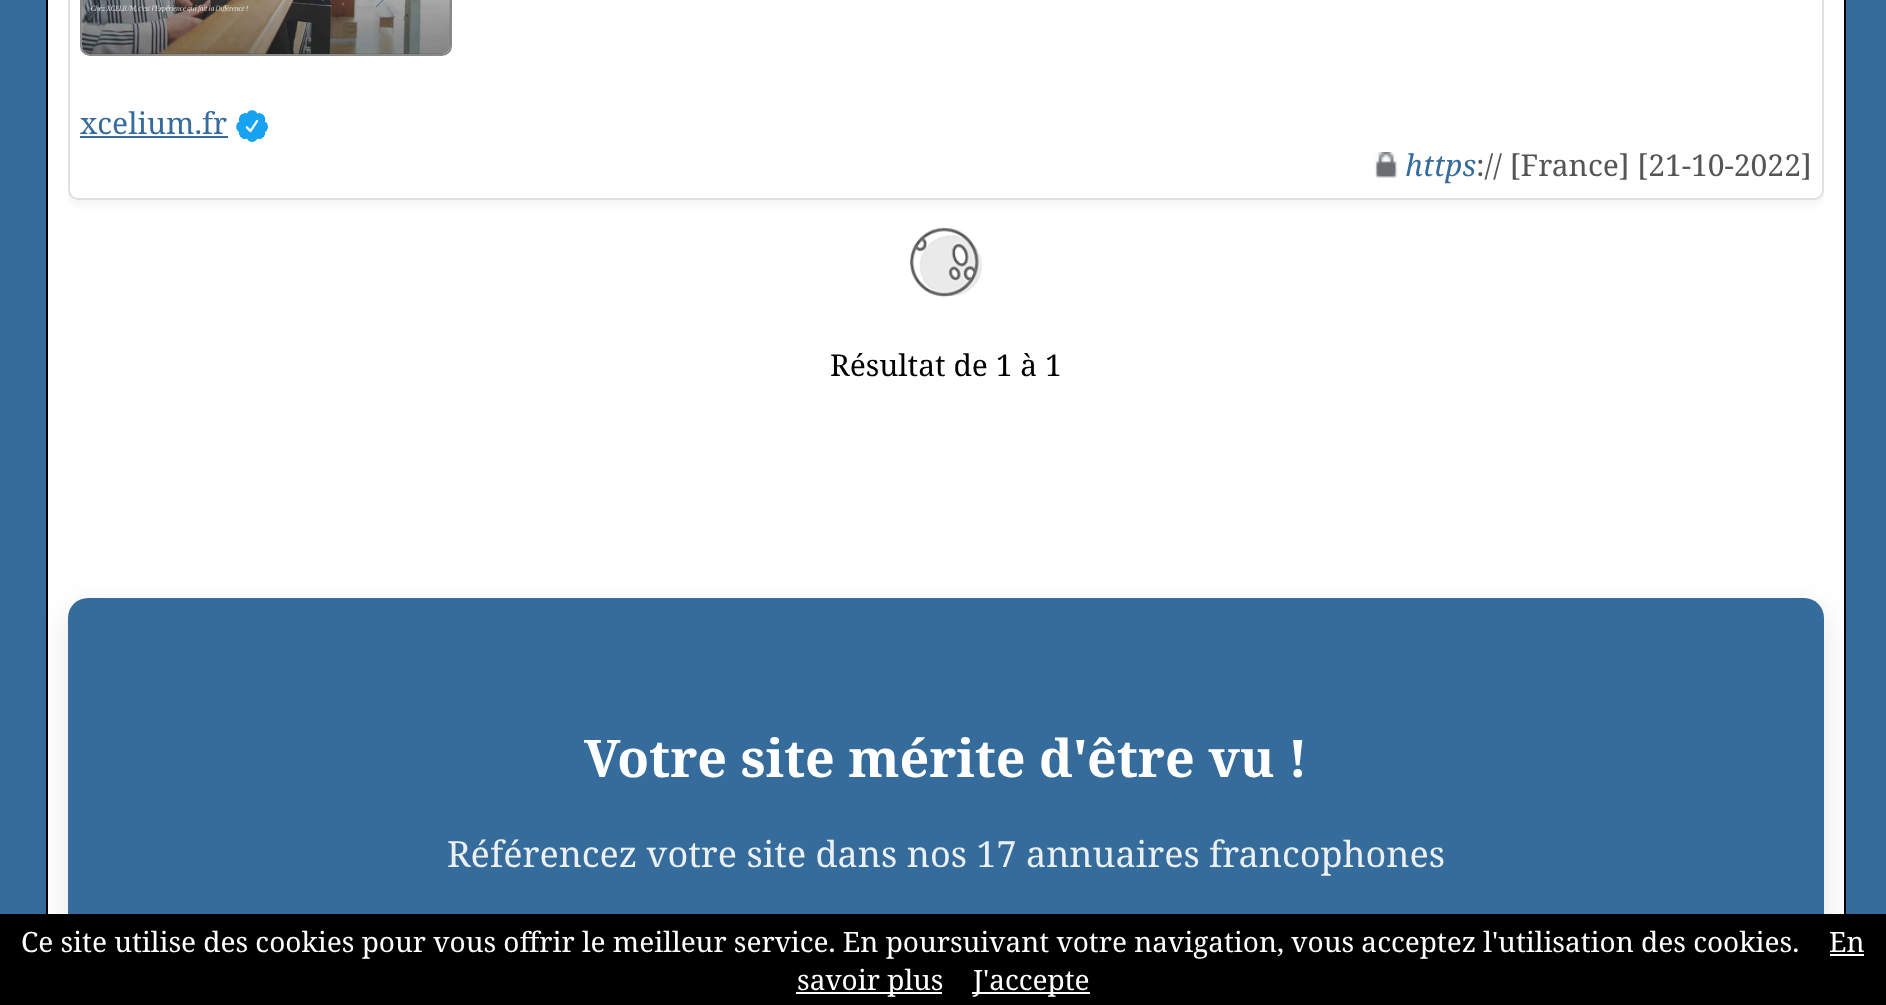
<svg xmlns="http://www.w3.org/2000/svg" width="1886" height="1005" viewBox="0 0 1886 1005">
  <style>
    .t1 { font: 30px Noto Serif; fill: #366c9c; }
    .t2 { font: italic 30px Noto Serif; fill: #366c9c; }
    .t3 { font: 30px Noto Serif; fill: #555; }
    .t4 { font: 30px Noto Serif; fill: #000; }
    .t5 { font: bold 52px Noto Serif; fill: #fff; }
    .t6 { font: 36px Noto Serif; fill: #ebf0f5; }
    .t7 { font: 28px Noto Serif; fill: #fff; }
  </style>
  <defs>
    <clipPath id="clip1"><rect x="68" y="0" width="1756" height="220"/></clipPath>
  </defs>
  <rect width="100%" height="100%" fill="#366c9c"/>
  <rect x="48" y="0" width="1796" height="914" fill="#fff"/>
  <rect x="47" y="-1" width="1798" height="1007" fill="none" stroke="#000" stroke-width="2"/>
  <g clip-path="url(#clip1)">
    <rect x="68" y="-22" width="1756" height="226" rx="10" fill="#0000000d" filter="blur(4px)"/>
  </g>
  <rect x="69" y="-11" width="1754" height="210" rx="9" fill="#fff" stroke="#e0e0e0" stroke-width="2"/>
  <rect x="81" y="-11" width="370" height="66" rx="9" fill="none" stroke="#888" stroke-width="2"/>
  <image x="82" y="0" width="368" height="54" href="images/1.png"/>
  <text x="80" y="134" class="t1">xcelium.fr</text>
  <rect x="80" y="136" width="148" height="2" fill="#366c9c"/>
  <image x="236" y="110" width="32" height="32" href="images/2.png"/>
  <image x="1374" y="152" width="24" height="27" href="images/3.png"/>
  <text x="1405" y="176" class="t2">https</text>
  <text x="1476" y="176" class="t3">:// [France] [21-10-2022]</text>
  <image x="910" y="227" width="72" height="70" href="images/4.png"/>
  <text x="830" y="376" class="t4">Résultat de 1 à 1</text>
  <rect x="68" y="608" width="1756" height="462" rx="20" fill="#0000001a" filter="blur(15px)"/>
  <rect x="68" y="598" width="1756" height="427" rx="20" fill="#366c9c"/>
  <text x="584" y="777" class="t5">Votre site mérite d'être vu !</text>
  <text x="447" y="867" class="t6">Référencez votre site dans nos 17 annuaires francophones</text>
  <rect x="0" y="914" width="1886" height="91" fill="#000"/>
  <text x="21" y="952" class="t7">Ce site utilise des cookies pour vous offrir le meilleur service. En poursuivant votre navigation, vous acceptez l'utilisation des cookies.</text>
  <text x="1829" y="952" class="t7">En</text>
  <rect x="1830" y="954" width="34" height="2" fill="#fff"/>
  <rect x="796" y="992" width="146" height="2" fill="#fff"/>
  <text x="797" y="990" class="t7">savoir plus</text>
  <rect x="972" y="992" width="118" height="2" fill="#fff"/>
  <text x="973" y="990" class="t7">J'accepte</text>
</svg>
